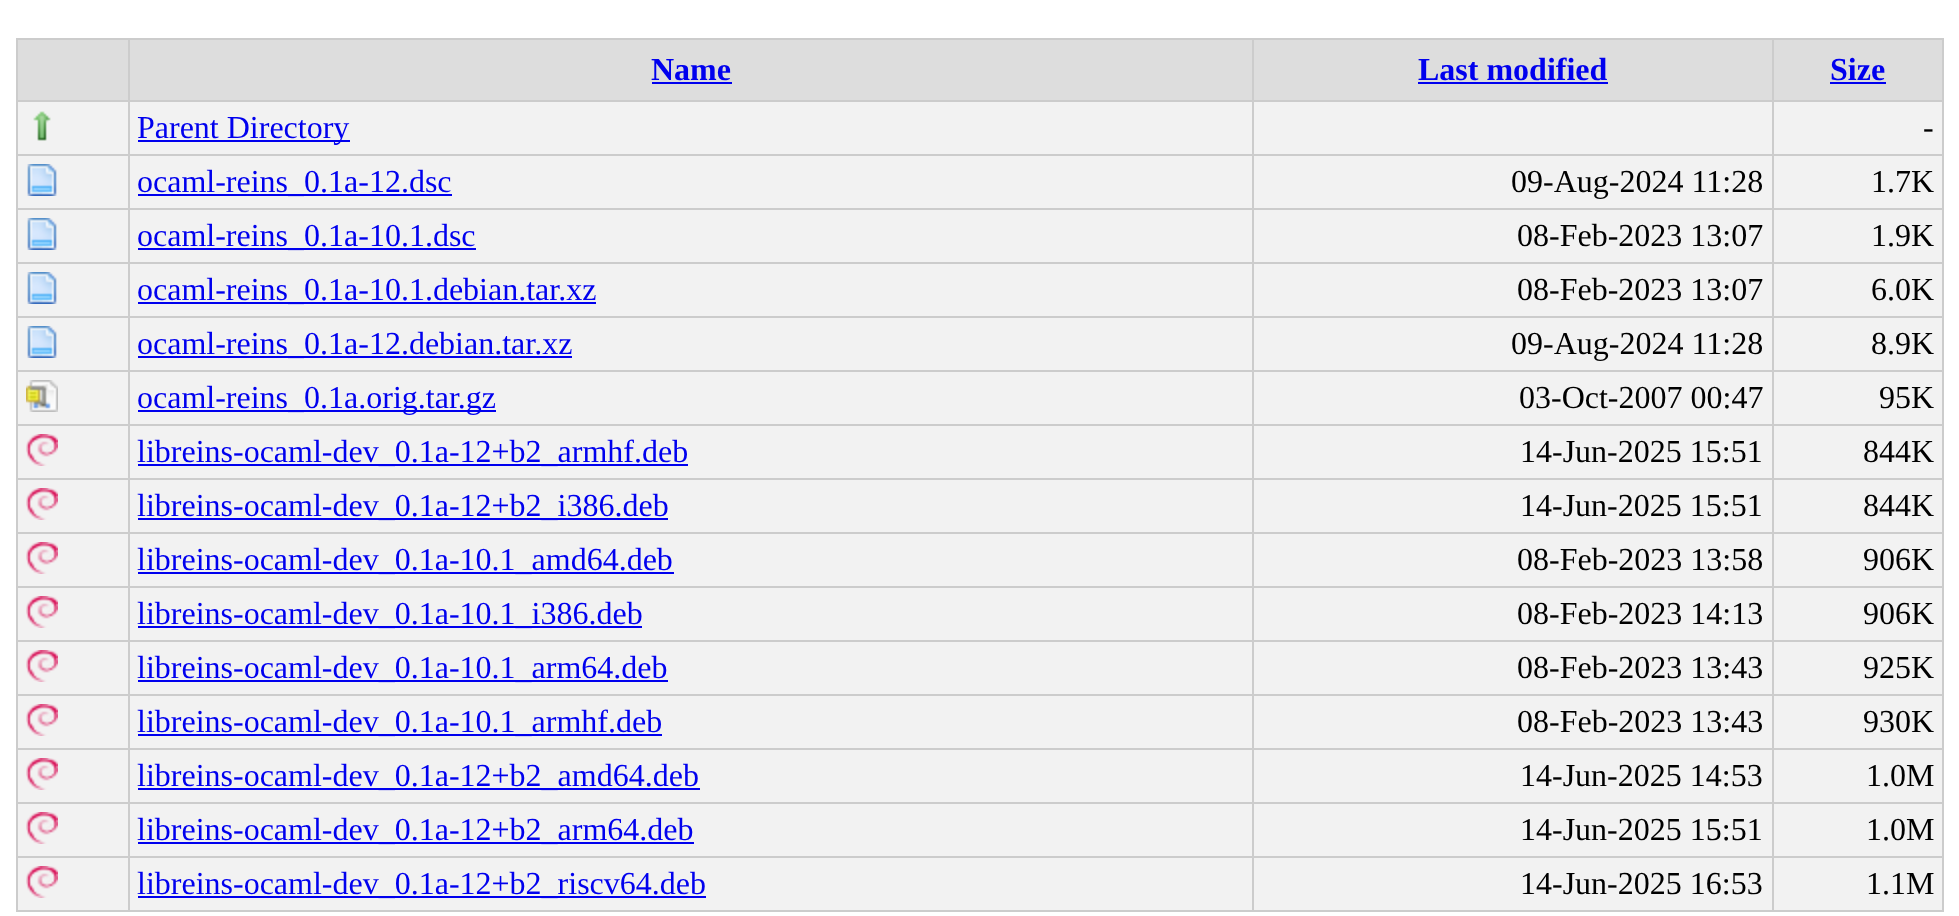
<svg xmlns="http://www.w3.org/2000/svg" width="1959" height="916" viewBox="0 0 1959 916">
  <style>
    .t1 { font: bold 32px Liberation Serif; fill: #00e; }
    .t2 { font: 32px Liberation Serif; fill: #00e; }
    .t3 { font: 32px Liberation Serif; fill: #000; }
  </style>
  <rect width="100%" height="100%" fill="#fff"/>
  <rect x="18" y="40" width="110" height="60" fill="#ddd"/>
  <rect x="1772" y="38" width="172" height="2" fill="#ccc"/>
  <rect x="1772" y="100" width="172" height="2" fill="#ccc"/>
  <rect x="18" y="102" width="1924" height="52" fill="#f2f2f2"/>
  <rect x="1772" y="154" width="172" height="2" fill="#ccc"/>
  <rect x="18" y="156" width="1924" height="52" fill="#f2f2f2"/>
  <rect x="1772" y="208" width="172" height="2" fill="#ccc"/>
  <rect x="18" y="210" width="1924" height="52" fill="#f2f2f2"/>
  <rect x="1772" y="262" width="172" height="2" fill="#ccc"/>
  <rect x="18" y="264" width="1924" height="52" fill="#f2f2f2"/>
  <rect x="1772" y="316" width="172" height="2" fill="#ccc"/>
  <rect x="18" y="318" width="1924" height="52" fill="#f2f2f2"/>
  <rect x="1772" y="370" width="172" height="2" fill="#ccc"/>
  <rect x="18" y="372" width="1924" height="52" fill="#f2f2f2"/>
  <rect x="1772" y="424" width="172" height="2" fill="#ccc"/>
  <rect x="18" y="426" width="1924" height="52" fill="#f2f2f2"/>
  <rect x="1772" y="478" width="172" height="2" fill="#ccc"/>
  <rect x="18" y="480" width="1924" height="52" fill="#f2f2f2"/>
  <rect x="1772" y="532" width="172" height="2" fill="#ccc"/>
  <rect x="18" y="534" width="1924" height="52" fill="#f2f2f2"/>
  <rect x="1772" y="586" width="172" height="2" fill="#ccc"/>
  <rect x="18" y="588" width="1924" height="52" fill="#f2f2f2"/>
  <rect x="1772" y="640" width="172" height="2" fill="#ccc"/>
  <rect x="18" y="642" width="1924" height="52" fill="#f2f2f2"/>
  <rect x="1772" y="694" width="172" height="2" fill="#ccc"/>
  <rect x="18" y="696" width="1924" height="52" fill="#f2f2f2"/>
  <rect x="1772" y="748" width="172" height="2" fill="#ccc"/>
  <rect x="18" y="750" width="1924" height="52" fill="#f2f2f2"/>
  <rect x="1772" y="802" width="172" height="2" fill="#ccc"/>
  <rect x="18" y="804" width="1924" height="52" fill="#f2f2f2"/>
  <rect x="1772" y="856" width="172" height="2" fill="#ccc"/>
  <rect x="18" y="858" width="1924" height="52" fill="#f2f2f2"/>
  <rect x="1942" y="856" width="2" height="56" fill="#ccc"/>
  <rect x="1772" y="910" width="172" height="2" fill="#ccc"/>
  <rect x="1772" y="856" width="2" height="56" fill="#ccc"/>
  <rect x="1252" y="856" width="522" height="2" fill="#ccc"/>
  <rect x="1772" y="802" width="2" height="56" fill="#ccc"/>
  <rect x="1252" y="802" width="522" height="2" fill="#ccc"/>
  <rect x="1772" y="748" width="2" height="56" fill="#ccc"/>
  <rect x="1252" y="748" width="522" height="2" fill="#ccc"/>
  <rect x="1772" y="694" width="2" height="56" fill="#ccc"/>
  <rect x="1252" y="694" width="522" height="2" fill="#ccc"/>
  <rect x="1772" y="640" width="2" height="56" fill="#ccc"/>
  <rect x="1252" y="640" width="522" height="2" fill="#ccc"/>
  <rect x="1772" y="586" width="2" height="56" fill="#ccc"/>
  <rect x="1252" y="586" width="522" height="2" fill="#ccc"/>
  <rect x="1772" y="532" width="2" height="56" fill="#ccc"/>
  <rect x="1252" y="532" width="522" height="2" fill="#ccc"/>
  <rect x="1772" y="478" width="2" height="56" fill="#ccc"/>
  <rect x="1252" y="478" width="522" height="2" fill="#ccc"/>
  <rect x="1772" y="424" width="2" height="56" fill="#ccc"/>
  <rect x="1252" y="424" width="522" height="2" fill="#ccc"/>
  <rect x="1772" y="370" width="2" height="56" fill="#ccc"/>
  <rect x="1252" y="370" width="522" height="2" fill="#ccc"/>
  <rect x="1772" y="316" width="2" height="56" fill="#ccc"/>
  <rect x="1252" y="316" width="522" height="2" fill="#ccc"/>
  <rect x="1772" y="262" width="2" height="56" fill="#ccc"/>
  <rect x="1252" y="262" width="522" height="2" fill="#ccc"/>
  <rect x="1772" y="208" width="2" height="56" fill="#ccc"/>
  <rect x="1252" y="208" width="522" height="2" fill="#ccc"/>
  <rect x="1772" y="154" width="2" height="56" fill="#ccc"/>
  <rect x="1252" y="154" width="522" height="2" fill="#ccc"/>
  <rect x="1772" y="100" width="2" height="56" fill="#ccc"/>
  <rect x="1252" y="100" width="522" height="2" fill="#ccc"/>
  <rect x="1772" y="38" width="2" height="64" fill="#ccc"/>
  <rect x="1252" y="38" width="522" height="2" fill="#ccc"/>
  <rect x="1252" y="910" width="522" height="2" fill="#ccc"/>
  <rect x="1252" y="856" width="2" height="56" fill="#ccc"/>
  <rect x="128" y="856" width="1126" height="2" fill="#ccc"/>
  <rect x="1252" y="802" width="2" height="56" fill="#ccc"/>
  <rect x="128" y="802" width="1126" height="2" fill="#ccc"/>
  <rect x="1252" y="748" width="2" height="56" fill="#ccc"/>
  <rect x="128" y="748" width="1126" height="2" fill="#ccc"/>
  <rect x="1252" y="694" width="2" height="56" fill="#ccc"/>
  <rect x="128" y="694" width="1126" height="2" fill="#ccc"/>
  <rect x="1252" y="640" width="2" height="56" fill="#ccc"/>
  <rect x="128" y="640" width="1126" height="2" fill="#ccc"/>
  <rect x="1252" y="586" width="2" height="56" fill="#ccc"/>
  <rect x="128" y="586" width="1126" height="2" fill="#ccc"/>
  <rect x="1252" y="532" width="2" height="56" fill="#ccc"/>
  <rect x="128" y="532" width="1126" height="2" fill="#ccc"/>
  <rect x="1252" y="478" width="2" height="56" fill="#ccc"/>
  <rect x="128" y="478" width="1126" height="2" fill="#ccc"/>
  <rect x="1252" y="424" width="2" height="56" fill="#ccc"/>
  <rect x="128" y="424" width="1126" height="2" fill="#ccc"/>
  <rect x="1252" y="370" width="2" height="56" fill="#ccc"/>
  <rect x="128" y="370" width="1126" height="2" fill="#ccc"/>
  <rect x="1252" y="316" width="2" height="56" fill="#ccc"/>
  <rect x="128" y="316" width="1126" height="2" fill="#ccc"/>
  <rect x="1252" y="262" width="2" height="56" fill="#ccc"/>
  <rect x="128" y="262" width="1126" height="2" fill="#ccc"/>
  <rect x="1252" y="208" width="2" height="56" fill="#ccc"/>
  <rect x="128" y="208" width="1126" height="2" fill="#ccc"/>
  <rect x="1252" y="154" width="2" height="56" fill="#ccc"/>
  <rect x="128" y="154" width="1126" height="2" fill="#ccc"/>
  <rect x="1252" y="100" width="2" height="56" fill="#ccc"/>
  <rect x="128" y="100" width="1126" height="2" fill="#ccc"/>
  <rect x="1252" y="38" width="2" height="64" fill="#ccc"/>
  <rect x="128" y="38" width="1126" height="2" fill="#ccc"/>
  <rect x="128" y="910" width="1126" height="2" fill="#ccc"/>
  <rect x="128" y="856" width="2" height="56" fill="#ccc"/>
  <rect x="16" y="856" width="114" height="2" fill="#ccc"/>
  <rect x="128" y="802" width="2" height="56" fill="#ccc"/>
  <rect x="16" y="802" width="114" height="2" fill="#ccc"/>
  <rect x="128" y="748" width="2" height="56" fill="#ccc"/>
  <rect x="16" y="748" width="114" height="2" fill="#ccc"/>
  <rect x="128" y="694" width="2" height="56" fill="#ccc"/>
  <rect x="16" y="694" width="114" height="2" fill="#ccc"/>
  <rect x="128" y="640" width="2" height="56" fill="#ccc"/>
  <rect x="16" y="640" width="114" height="2" fill="#ccc"/>
  <rect x="128" y="586" width="2" height="56" fill="#ccc"/>
  <rect x="16" y="586" width="114" height="2" fill="#ccc"/>
  <rect x="128" y="532" width="2" height="56" fill="#ccc"/>
  <rect x="16" y="532" width="114" height="2" fill="#ccc"/>
  <rect x="128" y="478" width="2" height="56" fill="#ccc"/>
  <rect x="16" y="478" width="114" height="2" fill="#ccc"/>
  <rect x="128" y="424" width="2" height="56" fill="#ccc"/>
  <rect x="16" y="424" width="114" height="2" fill="#ccc"/>
  <rect x="128" y="370" width="2" height="56" fill="#ccc"/>
  <rect x="16" y="370" width="114" height="2" fill="#ccc"/>
  <rect x="128" y="316" width="2" height="56" fill="#ccc"/>
  <rect x="16" y="316" width="114" height="2" fill="#ccc"/>
  <rect x="128" y="262" width="2" height="56" fill="#ccc"/>
  <rect x="16" y="262" width="114" height="2" fill="#ccc"/>
  <rect x="128" y="208" width="2" height="56" fill="#ccc"/>
  <rect x="16" y="208" width="114" height="2" fill="#ccc"/>
  <rect x="128" y="154" width="2" height="56" fill="#ccc"/>
  <rect x="16" y="154" width="114" height="2" fill="#ccc"/>
  <rect x="128" y="100" width="2" height="56" fill="#ccc"/>
  <rect x="16" y="100" width="114" height="2" fill="#ccc"/>
  <rect x="128" y="38" width="2" height="64" fill="#ccc"/>
  <rect x="16" y="38" width="114" height="2" fill="#ccc"/>
  <rect x="16" y="910" width="114" height="2" fill="#ccc"/>
  <rect x="16" y="856" width="2" height="56" fill="#ccc"/>
  <rect x="16" y="802" width="2" height="56" fill="#ccc"/>
  <rect x="16" y="748" width="2" height="56" fill="#ccc"/>
  <rect x="16" y="694" width="2" height="56" fill="#ccc"/>
  <rect x="16" y="640" width="2" height="56" fill="#ccc"/>
  <rect x="16" y="586" width="2" height="56" fill="#ccc"/>
  <rect x="16" y="532" width="2" height="56" fill="#ccc"/>
  <rect x="16" y="478" width="2" height="56" fill="#ccc"/>
  <rect x="16" y="424" width="2" height="56" fill="#ccc"/>
  <rect x="16" y="370" width="2" height="56" fill="#ccc"/>
  <rect x="16" y="316" width="2" height="56" fill="#ccc"/>
  <rect x="16" y="262" width="2" height="56" fill="#ccc"/>
  <rect x="16" y="208" width="2" height="56" fill="#ccc"/>
  <rect x="16" y="154" width="2" height="56" fill="#ccc"/>
  <rect x="16" y="100" width="2" height="56" fill="#ccc"/>
  <rect x="16" y="38" width="2" height="64" fill="#ccc"/>
  <rect x="130" y="40" width="1122" height="60" fill="#ddd"/>
  <text x="651" y="80" class="t1">Name</text>
  <rect x="652" y="82" width="80" height="2" fill="#00e"/>
  <rect x="1254" y="40" width="518" height="60" fill="#ddd"/>
  <text x="1418" y="80" class="t1">Last modified</text>
  <rect x="1418" y="82" width="190" height="2" fill="#00e"/>
  <rect x="1774" y="40" width="168" height="60" fill="#ddd"/>
  <rect x="1942" y="802" width="2" height="56" fill="#ccc"/>
  <rect x="1942" y="748" width="2" height="56" fill="#ccc"/>
  <rect x="1942" y="694" width="2" height="56" fill="#ccc"/>
  <rect x="1942" y="640" width="2" height="56" fill="#ccc"/>
  <rect x="1942" y="586" width="2" height="56" fill="#ccc"/>
  <rect x="1942" y="532" width="2" height="56" fill="#ccc"/>
  <rect x="1942" y="478" width="2" height="56" fill="#ccc"/>
  <rect x="1942" y="424" width="2" height="56" fill="#ccc"/>
  <rect x="1942" y="370" width="2" height="56" fill="#ccc"/>
  <rect x="1942" y="316" width="2" height="56" fill="#ccc"/>
  <rect x="1942" y="262" width="2" height="56" fill="#ccc"/>
  <rect x="1942" y="208" width="2" height="56" fill="#ccc"/>
  <rect x="1942" y="154" width="2" height="56" fill="#ccc"/>
  <rect x="1942" y="100" width="2" height="56" fill="#ccc"/>
  <rect x="1942" y="38" width="2" height="64" fill="#ccc"/>
  <text x="1830" y="80" class="t1">Size</text>
  <rect x="1830" y="82" width="56" height="2" fill="#00e"/>
  <image x="33" y="111" width="18" height="30" href="images/1.png"/>
  <rect x="138" y="140" width="212" height="2" fill="#00e"/>
  <text x="137" y="138" class="t2">Parent Directory</text>
  <text x="1923" y="138" class="t3">-</text>
  <image x="27" y="164" width="30" height="32" href="images/2.png"/>
  <rect x="138" y="194" width="314" height="2" fill="#00e"/>
  <text x="137" y="192" class="t2">ocaml-reins_0.1a-12.dsc</text>
  <text x="1511" y="192" class="t3">09-Aug-2024 11:28</text>
  <text x="1871" y="192" class="t3">1.7K</text>
  <image x="27" y="218" width="30" height="32" href="images/2.png"/>
  <rect x="138" y="248" width="338" height="2" fill="#00e"/>
  <text x="137" y="246" class="t2">ocaml-reins_0.1a-10.1.dsc</text>
  <text x="1517" y="246" class="t3">08-Feb-2023 13:07</text>
  <text x="1871" y="246" class="t3">1.9K</text>
  <image x="27" y="272" width="30" height="32" href="images/2.png"/>
  <rect x="138" y="302" width="458" height="2" fill="#00e"/>
  <text x="137" y="300" class="t2">ocaml-reins_0.1a-10.1.debian.tar.xz</text>
  <text x="1517" y="300" class="t3">08-Feb-2023 13:07</text>
  <text x="1871" y="300" class="t3">6.0K</text>
  <image x="27" y="326" width="30" height="32" href="images/2.png"/>
  <rect x="138" y="356" width="434" height="2" fill="#00e"/>
  <text x="137" y="354" class="t2">ocaml-reins_0.1a-12.debian.tar.xz</text>
  <text x="1511" y="354" class="t3">09-Aug-2024 11:28</text>
  <text x="1871" y="354" class="t3">8.9K</text>
  <image x="26" y="380" width="32" height="32" href="images/3.png"/>
  <rect x="138" y="410" width="358" height="2" fill="#00e"/>
  <text x="137" y="408" class="t2">ocaml-reins_0.1a.orig.tar.gz</text>
  <text x="1519" y="408" class="t3">03-Oct-2007 00:47</text>
  <text x="1879" y="408" class="t3">95K</text>
  <image x="26" y="434" width="32" height="32" href="images/4.png"/>
  <rect x="138" y="464" width="550" height="2" fill="#00e"/>
  <text x="137" y="462" class="t2">libreins-ocaml-dev_0.1a-12+b2_armhf.deb</text>
  <text x="1520" y="462" class="t3">14-Jun-2025 15:51</text>
  <text x="1863" y="462" class="t3">844K</text>
  <image x="26" y="488" width="32" height="32" href="images/4.png"/>
  <rect x="138" y="518" width="530" height="2" fill="#00e"/>
  <text x="137" y="516" class="t2">libreins-ocaml-dev_0.1a-12+b2_i386.deb</text>
  <text x="1520" y="516" class="t3">14-Jun-2025 15:51</text>
  <text x="1863" y="516" class="t3">844K</text>
  <image x="26" y="542" width="32" height="32" href="images/4.png"/>
  <rect x="138" y="572" width="536" height="2" fill="#00e"/>
  <text x="137" y="570" class="t2">libreins-ocaml-dev_0.1a-10.1_amd64.deb</text>
  <text x="1517" y="570" class="t3">08-Feb-2023 13:58</text>
  <text x="1863" y="570" class="t3">906K</text>
  <image x="26" y="596" width="32" height="32" href="images/4.png"/>
  <rect x="138" y="626" width="504" height="2" fill="#00e"/>
  <text x="137" y="624" class="t2">libreins-ocaml-dev_0.1a-10.1_i386.deb</text>
  <text x="1517" y="624" class="t3">08-Feb-2023 14:13</text>
  <text x="1863" y="624" class="t3">906K</text>
  <image x="26" y="650" width="32" height="32" href="images/4.png"/>
  <rect x="138" y="680" width="530" height="2" fill="#00e"/>
  <text x="137" y="678" class="t2">libreins-ocaml-dev_0.1a-10.1_arm64.deb</text>
  <text x="1517" y="678" class="t3">08-Feb-2023 13:43</text>
  <text x="1863" y="678" class="t3">925K</text>
  <image x="26" y="704" width="32" height="32" href="images/4.png"/>
  <rect x="138" y="734" width="524" height="2" fill="#00e"/>
  <text x="137" y="732" class="t2">libreins-ocaml-dev_0.1a-10.1_armhf.deb</text>
  <text x="1517" y="732" class="t3">08-Feb-2023 13:43</text>
  <text x="1863" y="732" class="t3">930K</text>
  <image x="26" y="758" width="32" height="32" href="images/4.png"/>
  <rect x="138" y="788" width="562" height="2" fill="#00e"/>
  <text x="137" y="786" class="t2">libreins-ocaml-dev_0.1a-12+b2_amd64.deb</text>
  <text x="1520" y="786" class="t3">14-Jun-2025 14:53</text>
  <text x="1866" y="786" class="t3">1.0M</text>
  <image x="26" y="812" width="32" height="32" href="images/4.png"/>
  <rect x="138" y="842" width="556" height="2" fill="#00e"/>
  <text x="137" y="840" class="t2">libreins-ocaml-dev_0.1a-12+b2_arm64.deb</text>
  <text x="1520" y="840" class="t3">14-Jun-2025 15:51</text>
  <text x="1866" y="840" class="t3">1.0M</text>
  <image x="26" y="866" width="32" height="32" href="images/4.png"/>
  <rect x="138" y="896" width="568" height="2" fill="#00e"/>
  <text x="137" y="894" class="t2">libreins-ocaml-dev_0.1a-12+b2_riscv64.deb</text>
  <text x="1520" y="894" class="t3">14-Jun-2025 16:53</text>
  <text x="1866" y="894" class="t3">1.1M</text>
</svg>
